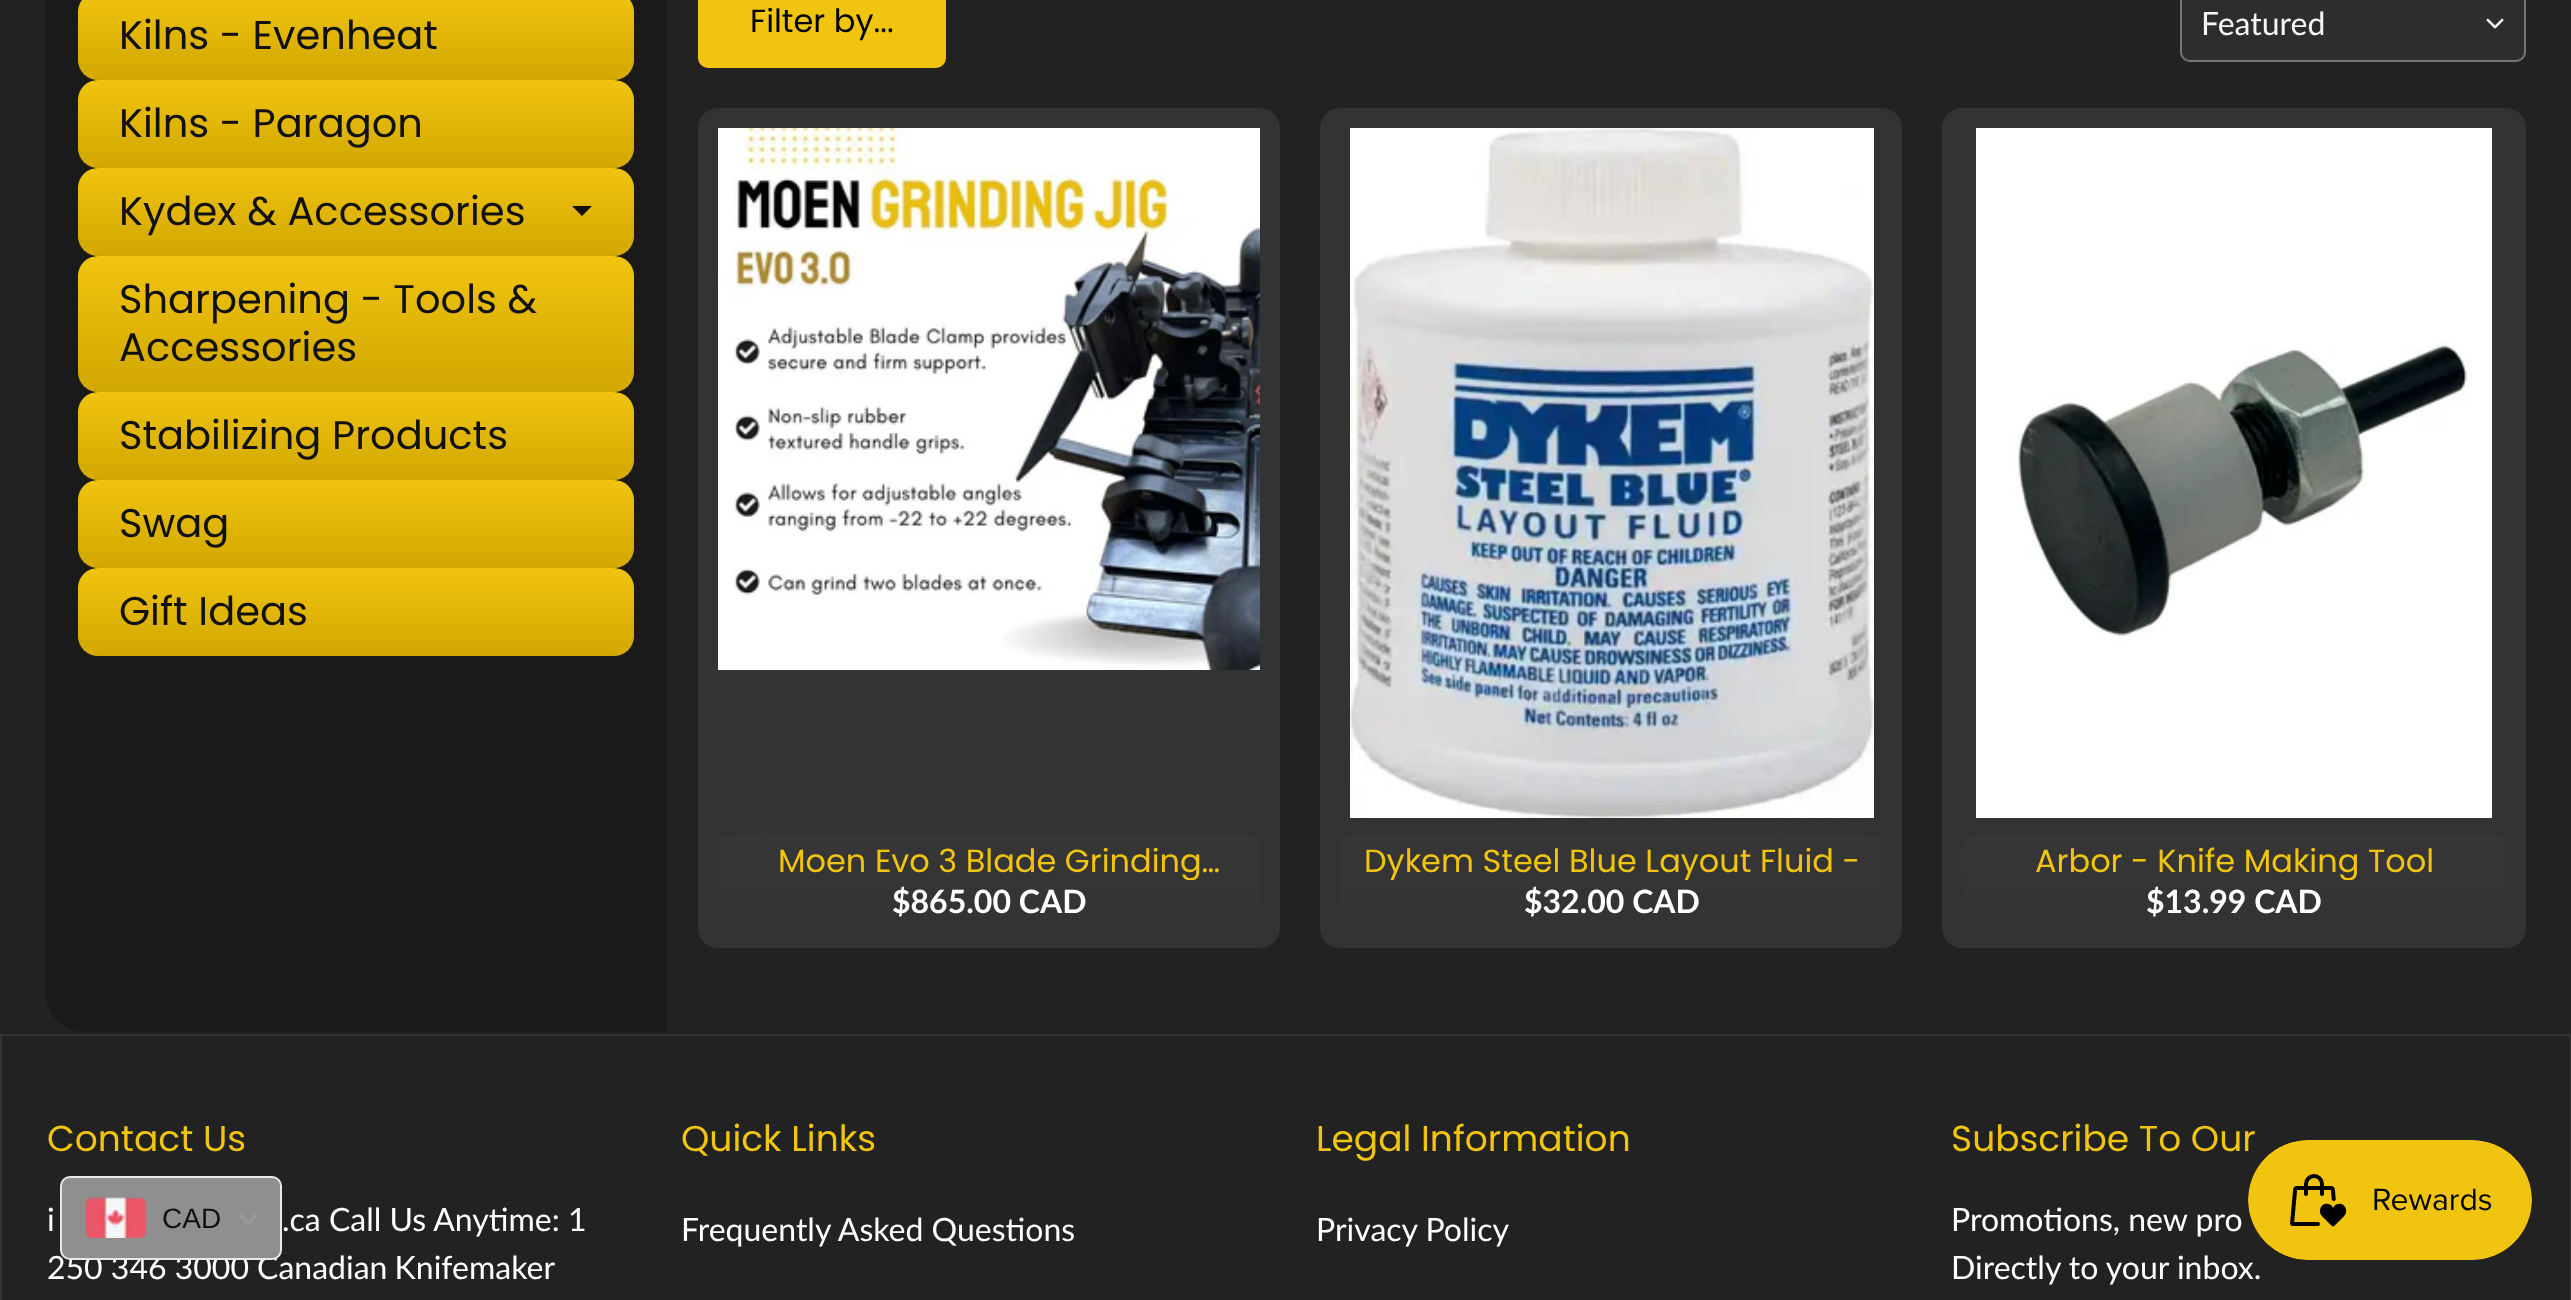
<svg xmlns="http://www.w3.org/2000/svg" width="2571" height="1300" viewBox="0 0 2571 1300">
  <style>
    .t1 { font: 40px Poppins; fill: #111; }
    .t2 { font: 32px Poppins; fill: #000; }
    .t3 { font: 32px Lato; fill: #f9f5f5; }
    .t4 { font: 32px Poppins; fill: #f1c40f; }
    .t5 { font: bold 32px Lato; fill: #fff; }
    .t6 { font: 36px Poppins; fill: #f1c40f; }
    .t7 { font: 32px Lato; fill: #fff; }
    .t8 { font: 28px Liberation Sans; fill: #111; }
  </style>
  <defs>
    <linearGradient id="g1" gradientUnits="userSpaceOnUse" x1="356" y1="-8" x2="356" y2="80"><stop offset="0" stop-color="#f1c40f"/><stop offset="1" stop-color="#d1a701"/></linearGradient>
    <linearGradient id="g2" gradientUnits="userSpaceOnUse" x1="356" y1="80" x2="356" y2="168"><stop offset="0" stop-color="#f1c40f"/><stop offset="1" stop-color="#d1a701"/></linearGradient>
    <linearGradient id="g3" gradientUnits="userSpaceOnUse" x1="356" y1="168" x2="356" y2="256"><stop offset="0" stop-color="#f1c40f"/><stop offset="1" stop-color="#d1a701"/></linearGradient>
    <linearGradient id="g4" gradientUnits="userSpaceOnUse" x1="356" y1="256" x2="356" y2="392"><stop offset="0" stop-color="#f1c40f"/><stop offset="1" stop-color="#d1a701"/></linearGradient>
    <linearGradient id="g5" gradientUnits="userSpaceOnUse" x1="356" y1="392" x2="356" y2="480"><stop offset="0" stop-color="#f1c40f"/><stop offset="1" stop-color="#d1a701"/></linearGradient>
    <linearGradient id="g6" gradientUnits="userSpaceOnUse" x1="356" y1="480" x2="356" y2="568"><stop offset="0" stop-color="#f1c40f"/><stop offset="1" stop-color="#d1a701"/></linearGradient>
    <linearGradient id="g7" gradientUnits="userSpaceOnUse" x1="356" y1="568" x2="356" y2="656"><stop offset="0" stop-color="#f1c40f"/><stop offset="1" stop-color="#d1a701"/></linearGradient>
    <linearGradient id="g8" gradientUnits="userSpaceOnUse" x1="989" y1="834" x2="989" y2="928"><stop offset="0" stop-color="#363636"/><stop offset="1" stop-color="#333"/></linearGradient>
    <clipPath id="clip1"><rect x="734" y="834" width="510" height="46"/></clipPath>
    <linearGradient id="g9" gradientUnits="userSpaceOnUse" x1="1611" y1="834" x2="1611" y2="928"><stop offset="0" stop-color="#363636"/><stop offset="1" stop-color="#333"/></linearGradient>
    <clipPath id="clip2"><rect x="1356" y="834" width="510" height="46"/></clipPath>
    <linearGradient id="g10" gradientUnits="userSpaceOnUse" x1="2234" y1="834" x2="2234" y2="928"><stop offset="0" stop-color="#363636"/><stop offset="1" stop-color="#333"/></linearGradient>
    <clipPath id="clip3"><rect x="1978" y="834" width="512" height="46"/></clipPath>
  </defs>
  <rect width="100%" height="100%" fill="#222"/>
  <path d="M84-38H666V1032H84C63 1032 46 1015 46 994V0C46-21 63-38 84-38Z" fill="#1a1a1a"/>
  <rect x="78" y="-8" width="556" height="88" rx="20" fill="url(#g1)"/>
  <text x="119" y="49" class="t1">Kilns - Evenheat</text>
  <rect x="78" y="80" width="556" height="88" rx="20" fill="url(#g2)"/>
  <text x="119" y="137" class="t1">Kilns - Paragon</text>
  <rect x="78" y="168" width="556" height="88" rx="20" fill="url(#g3)"/>
  <text x="119" y="225" class="t1">Kydex &amp; Accessories</text>
  <path d="M572 206H592L582 216Z" fill="#111"/>
  <rect x="78" y="256" width="556" height="136" rx="20" fill="url(#g4)"/>
  <text x="119" y="313" class="t1">Sharpening - Tools &amp;</text>
  <text x="119" y="361" class="t1">Accessories</text>
  <rect x="78" y="392" width="556" height="88" rx="20" fill="url(#g5)"/>
  <text x="119" y="449" class="t1">Stabilizing Products</text>
  <rect x="78" y="480" width="556" height="88" rx="20" fill="url(#g6)"/>
  <text x="119" y="537" class="t1">Swag</text>
  <rect x="78" y="568" width="556" height="88" rx="20" fill="url(#g7)"/>
  <text x="119" y="625" class="t1">Gift Ideas</text>
  <rect x="698" y="-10" width="248" height="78" rx="10" fill="#f1c40f"/>
  <text x="750" y="32" class="t2">Filter by...</text>
  <rect x="2180" y="-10" width="346" height="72" rx="10" fill="#2d2d2d"/>
  <image x="2486" y="18" width="18" height="11" href="images/1.png"/>
  <rect x="2181" y="-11" width="344" height="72" rx="9" fill="none" stroke="#767676" stroke-width="2"/>
  <text x="2201" y="35" class="t3">Featured</text>
  <rect x="698" y="108" width="582" height="840" rx="20" fill="#333"/>
  <image x="718" y="128" width="542" height="542" href="images/2.png"/>
  <rect x="718" y="834" width="542" height="94" rx="12" fill="url(#g8)"/>
  <g clip-path="url(#clip1)">
    <text x="778" y="872" class="t4">Moen Evo 3 Blade Grinding…</text>
  </g>
  <text x="892" y="913" class="t5">$865.00 CAD</text>
  <rect x="1320" y="108" width="582" height="840" rx="20" fill="#333"/>
  <image x="1350" y="128" width="524" height="690" href="images/3.png"/>
  <rect x="1340" y="834" width="542" height="94" rx="12" fill="url(#g9)"/>
  <g clip-path="url(#clip2)">
    <text x="1364" y="872" class="t4">Dykem Steel Blue Layout Fluid -</text>
  </g>
  <text x="1524" y="913" class="t5">$32.00 CAD</text>
  <rect x="1942" y="108" width="584" height="840" rx="20" fill="#333"/>
  <image x="1976" y="128" width="516" height="690" href="images/4.png"/>
  <rect x="1962" y="834" width="544" height="94" rx="12" fill="url(#g10)"/>
  <g clip-path="url(#clip3)">
    <text x="2035" y="872" class="t4">Arbor - Knife Making Tool</text>
  </g>
  <text x="2146" y="913" class="t5">$13.99 CAD</text>
  <rect x="1" y="1035" width="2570" height="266" fill="none" stroke="#333" stroke-width="2"/>
  <text x="47" y="1151" class="t6">Contact Us</text>
  <text x="47" y="1231" class="t7">i</text>
  <text x="282" y="1231" class="t7">.ca Call Us Anytime: 1</text>
  <text x="47" y="1279" class="t7">250 346 3000</text>
  <text x="257" y="1279" word-spacing="-1" class="t7">Canadian Knifemaker</text>
  <text x="681" y="1151" class="t6">Quick Links</text>
  <text x="681" y="1241" class="t7">Frequently Asked Questions</text>
  <text x="1316" y="1151" class="t6">Legal Information</text>
  <text x="1316" y="1241" class="t7">Privacy Policy</text>
  <text x="1951" y="1151" class="t6">Subscribe To Our</text>
  <text x="1951" y="1231" class="t7">Promotions, new pro</text>
  <text x="1951" y="1279" class="t7">Directly to your inbox.</text>
  <image x="2248" y="1140" width="284" height="120" href="images/5.png"/>
  <rect x="61" y="1177" width="220" height="82" rx="9" fill="#8f8f8f" stroke="#e8e8e8" stroke-width="2"/>
  <image x="86" y="1197" width="61" height="41" href="images/6.png"/>
  <text x="162" y="1228" class="t8">CAD</text>
  <path d="M255 1213L258 1216L248 1226L245.5 1223Z" fill="#999"/>
  <path d="M241 1213L251 1223L248 1226L238 1216Z" fill="#999"/>
</svg>
